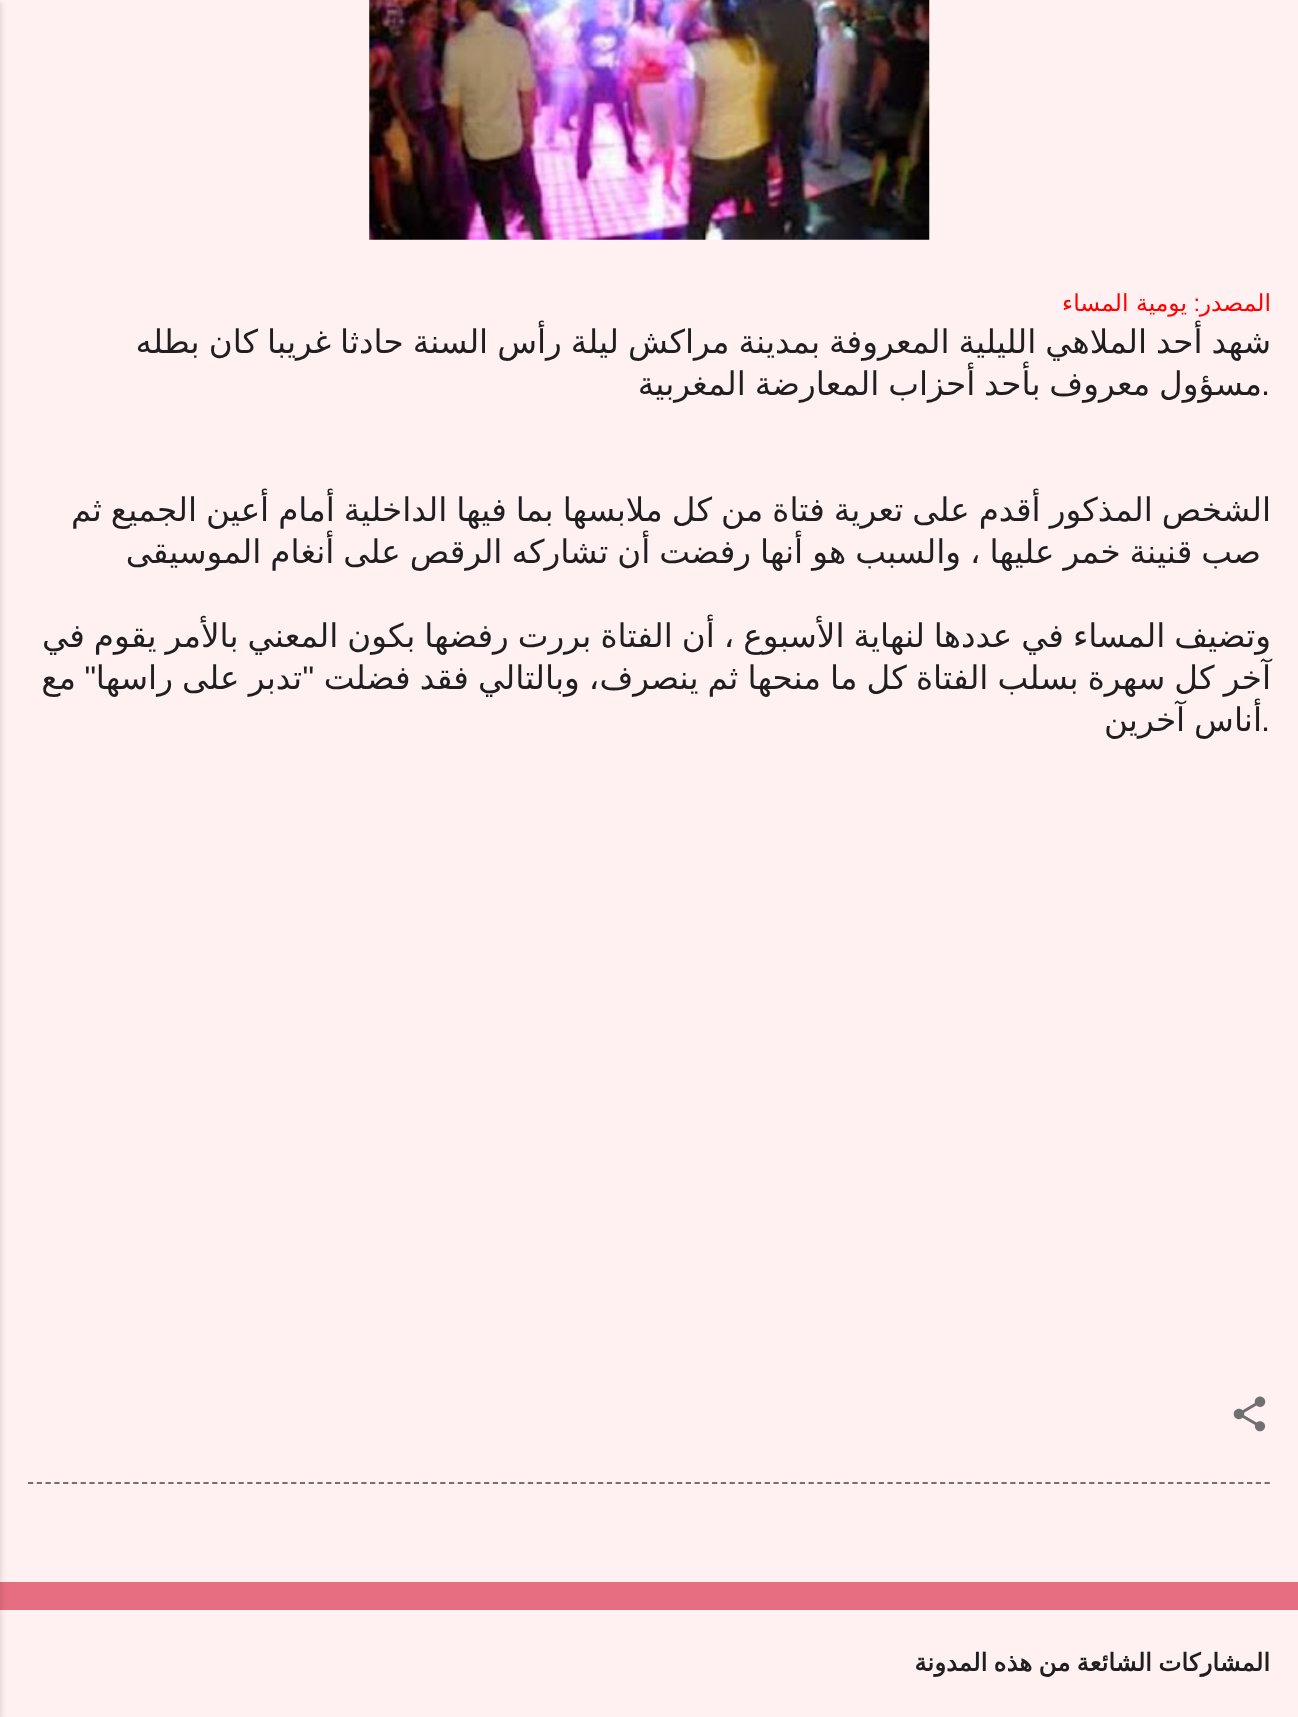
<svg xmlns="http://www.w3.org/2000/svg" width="1298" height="1717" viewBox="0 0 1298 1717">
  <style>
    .t1 { font: 23.5px DejaVu Sans; direction: rtl; fill: #f00; }
    .t2 { font: 23.5px Liberation Sans; direction: rtl; fill: #f00; }
    .t3 { font: 32.65px DejaVu Sans; direction: rtl; fill: #201f20; }
    .t4 { font: 32.65px Liberation Sans; fill: #201f20; }
    .t5 { font: 32.65px Liberation Sans; direction: rtl; fill: #201f20; }
    .t6 { font: bold 24.5px DejaVu Sans; direction: rtl; fill: #201f20; }
  </style>
  <rect width="100%" height="100%" fill="#e76d80"/>
  <rect x="0" y="0" width="1298" height="1582" fill="#fff0f2"/>
  <image x="369" y="0" width="561" height="240" href="images/1.png"/>
  <text x="1271" y="311" class="t1">المصدر</text>
  <text x="1200" y="311" class="t2">:</text>
  <text x="1187" y="311" class="t1">يومية المساء</text>
  <text x="1271" y="353" word-spacing="-1.4" class="t3">شهد أحد الملاهي الليلية المعروفة بمدينة مراكش ليلة رأس السنة حادثا غريبا كان بطله</text>
  <text x="1262" y="395" word-spacing="-1.5" class="t3">مسؤول معروف بأحد أحزاب المعارضة المغربية</text>
  <text x="1261" y="395" class="t4">.</text>
  <text x="1271" y="521" word-spacing="-1.4" class="t3">الشخص المذكور أقدم على تعرية فتاة من كل ملابسها بما فيها الداخلية أمام أعين الجميع ثم</text>
  <text x="1261" y="563" word-spacing="-1.4" class="t3">صب قنينة خمر عليها ، والسبب هو أنها رفضت أن تشاركه الرقص على أنغام الموسيقى</text>
  <text x="1271" y="647" word-spacing="-1.4" class="t3">وتضيف المساء في عددها لنهاية الأسبوع ، أن الفتاة بررت رفضها بكون المعني بالأمر يقوم في</text>
  <text x="1271" y="689" word-spacing="-1.25" class="t3">آخر كل سهرة بسلب الفتاة كل ما منحها ثم ينصرف، وبالتالي فقد فضلت</text>
  <text x="302" y="689" word-spacing="-1.25" class="t3">تدبر على راسها</text>
  <text x="314" y="689" class="t5">"</text>
  <text x="96" y="689" class="t5">"</text>
  <text x="76" y="689" class="t3">مع</text>
  <text x="1261" y="731" class="t4">.</text>
  <text x="1262" y="731" word-spacing="-1.5" class="t3">أناس آخرين</text>
  <image x="1233" y="1396" width="33" height="36" href="images/2.png"/>
  <path d="M28 1483H1270.5" fill="none" stroke="#756e6f" stroke-width="1.8" stroke-dasharray="5.25 3.52"/>
  <rect x="0" y="1610" width="1298" height="107" fill="#fff0f2"/>
  <text x="1270" y="1671" word-spacing="-1.5" class="t6">المشاركات الشائعة من هذه المدونة</text>
  <rect x="-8" y="2" width="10" height="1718" fill="#0000001a" filter="blur(2.5px)"/>
</svg>
